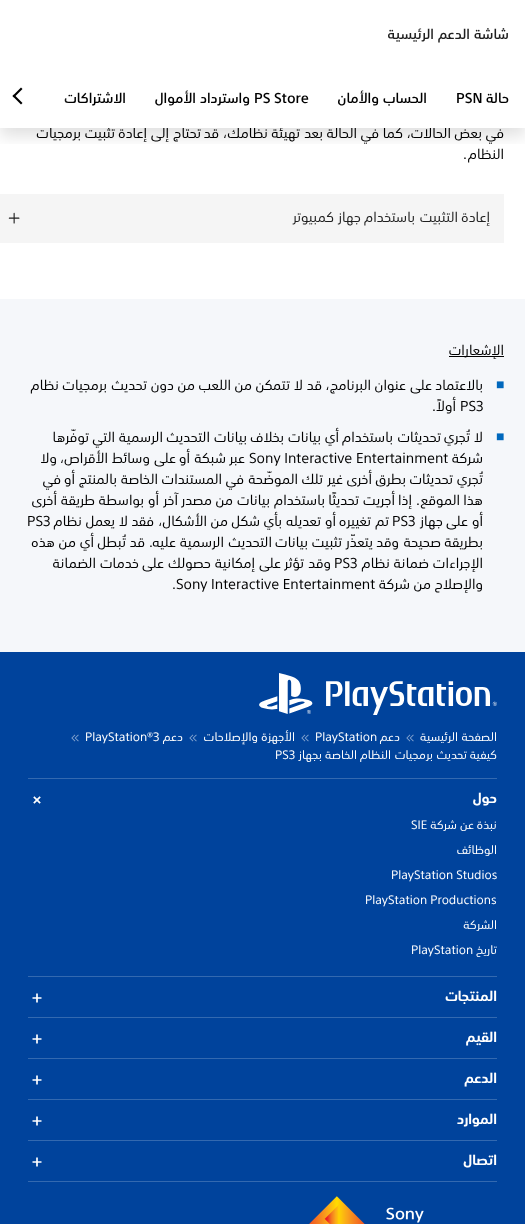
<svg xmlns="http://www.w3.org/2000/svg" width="525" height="1224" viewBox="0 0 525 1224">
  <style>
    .t1 { font: 14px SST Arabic; direction: rtl; fill: #000; }
    .t2 { font: 500 14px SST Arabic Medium; direction: rtl; fill: #1f1f1f; }
    .t3 { font: 500 14px SST Arabic Medium; direction: rtl; fill: #000; }
    .t4 { font: 500 14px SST; fill: #000; }
    .t5 { font: 14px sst; direction: rtl; fill: #000; }
    .t6 { font: 14px SST Arabic; direction: rtl; fill: #1f1f1f; }
    .t7 { font: 14px Liberation Sans; fill: #0068bd; }
    .t8 { font: 14px sst; fill: #000; }
    .t9 { font: 12px SST Arabic; direction: rtl; fill: #fff; }
    .t10 { font: 12px sst; fill: #fff; }
    .t11 { font: bold 14px SST Arabic; direction: rtl; fill: #fff; }
  </style>
  <defs>
    <clipPath id="clip1"><rect x="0" y="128" width="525" height="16"/></clipPath>
    <linearGradient id="g1" gradientUnits="userSpaceOnUse" x1="0" y1="96" x2="70" y2="96"><stop offset="0.2" stop-color="#fff"/><stop offset="1" stop-color="#fff" stop-opacity="0"/></linearGradient>
  </defs>
  <rect width="100%" height="100%" fill="#fff"/>
  <text x="451" y="138" class="t1">الحالات،</text>
  <text x="403" y="138" class="t1">كما</text>
  <text x="357" y="138" class="t1">الحالة</text>
  <text x="300" y="138" class="t1">تهيئة</text>
  <text x="268" y="138" class="t1">نظامك،</text>
  <text x="201" y="138" class="t1">تحتاج</text>
  <text x="169" y="138" class="t1">إلى</text>
  <text x="147" y="138" class="t1">إعادة</text>
  <text x="115" y="138" class="t1">تثبيت</text>
  <text x="81" y="138" class="t1">برمجيات</text>
  <rect x="49" y="127" width="401" height="1" fill="#fff"/>
  <g clip-path="url(#clip1)">
    <rect x="0" y="8" width="525" height="128" fill="#0000001f" filter="blur(8px)"/>
  </g>
  <text x="509" y="39" class="t2">شاشة</text>
  <text x="470" y="39" class="t2">الدعم</text>
  <text x="434" y="39" class="t2">الرئيسية</text>
  <text x="509" y="103" class="t3">حالة</text>
  <text x="456" y="103" class="t4">PSN</text>
  <text x="427" y="103" class="t3">الحساب</text>
  <text x="379" y="103" class="t3">والأمان</text>
  <text x="254" y="103" class="t4">PS Store</text>
  <text x="250" y="103" class="t3">واسترداد</text>
  <text x="196" y="103" class="t3">الأموال</text>
  <text x="126" y="103" class="t3">الاشتراكات</text>
  <rect x="64" y="95" width="5" height="8" fill="url(#g1)"/>
  <path d="M14 94.5L22.5 103L21 104.5L12.5 96Z" fill="#000"/>
  <path d="M21 87.5L22.5 89L14 97.5L12.5 96Z" fill="#000"/>
  <text x="504" y="138" class="t1">في</text>
  <text x="482" y="138" class="t1">بعض</text>
  <text x="379" y="138" class="t1">في</text>
  <text x="323" y="138" class="t1">بعد</text>
  <text x="219" y="138" class="t1">قد</text>
  <text x="504" y="159" class="t1">النظام</text>
  <text x="467" y="159" class="t5">.</text>
  <rect x="0" y="194" width="504" height="49" fill="#f5f5f5"/>
  <text x="490" y="222" class="t6">إعادة</text>
  <text x="458" y="222" class="t6">التثبيت</text>
  <text x="415" y="222" class="t6">باستخدام</text>
  <text x="361" y="222" class="t6">جهاز</text>
  <text x="334" y="222" class="t6">كمبيوتر</text>
  <image x="8" y="212" width="12" height="12" href="images/1.png"/>
  <rect x="0" y="299" width="525" height="353" fill="#f5f7fa"/>
  <rect x="449" y="356" width="55" height="1" fill="#000"/>
  <text x="504" y="355" class="t1">الإشعارات</text>
  <text x="496" y="389" class="t7">■</text>
  <text x="483" y="390" class="t1">بالاعتماد</text>
  <text x="432" y="390" class="t1">على</text>
  <text x="406" y="390" class="t1">عنوان</text>
  <text x="371" y="390" class="t1">البرنامج،</text>
  <text x="322" y="390" class="t1">قد</text>
  <text x="303" y="390" class="t1">لا</text>
  <text x="290" y="390" class="t1">تتمكن</text>
  <text x="252" y="390" class="t1">من</text>
  <text x="231" y="390" class="t1">اللعب</text>
  <text x="195" y="390" class="t1">من</text>
  <text x="174" y="390" class="t1">دون</text>
  <text x="147" y="390" class="t1">تحديث</text>
  <text x="107" y="390" class="t1">برمجيات</text>
  <text x="59" y="390" class="t1">نظام</text>
  <text x="460" y="411" class="t8">PS3</text>
  <text x="456" y="411" class="t1">أولاً</text>
  <text x="436" y="411" class="t5">.</text>
  <text x="496" y="441" class="t7">■</text>
  <text x="483" y="442" class="t1">لا</text>
  <text x="470" y="442" class="t1">تُجري</text>
  <text x="441" y="442" class="t1">تحديثات</text>
  <text x="393" y="442" class="t1">باستخدام</text>
  <text x="339" y="442" class="t1">أي</text>
  <text x="321" y="442" class="t1">بيانات</text>
  <text x="284" y="442" class="t1">بخلاف</text>
  <text x="247" y="442" class="t1">بيانات</text>
  <text x="210" y="442" class="t1">التحديث</text>
  <text x="163" y="442" class="t1">الرسمية</text>
  <text x="115" y="442" class="t1">التي</text>
  <text x="89" y="442" class="t1">توفّرها</text>
  <text x="483" y="463" class="t1">شركة</text>
  <text x="249" y="463" class="t8">Sony Interactive Entertainment</text>
  <text x="245" y="463" class="t1">عبر</text>
  <text x="226" y="463" class="t1">شبكة</text>
  <text x="190" y="463" class="t1">أو</text>
  <text x="176" y="463" class="t1">على</text>
  <text x="150" y="463" class="t1">وسائط</text>
  <text x="108" y="463" class="t1">الأقراص،</text>
  <text x="57" y="463" class="t1">ولا</text>
  <text x="483" y="484" class="t1">تُجري</text>
  <text x="453" y="484" class="t1">تحديثات</text>
  <text x="406" y="484" class="t1">بطرق</text>
  <text x="372" y="484" class="t1">أخرى</text>
  <text x="343" y="484" class="t1">غير</text>
  <text x="323" y="484" class="t1">تلك</text>
  <text x="298" y="484" class="t1">الموضّحة</text>
  <text x="244" y="484" class="t1">في</text>
  <text x="222" y="484" class="t1">المستندات</text>
  <text x="158" y="484" class="t1">الخاصة</text>
  <text x="117" y="484" class="t1">بالمنتج</text>
  <text x="75" y="484" class="t1">أو</text>
  <text x="61" y="484" class="t1">في</text>
  <text x="483" y="505" class="t1">هذا</text>
  <text x="460" y="505" class="t1">الموقع</text>
  <text x="420" y="505" class="t5">.</text>
  <text x="412" y="505" class="t1">إذا</text>
  <text x="395" y="505" class="t1">أجريت</text>
  <text x="359" y="505" class="t1">تحديثًا</text>
  <text x="325" y="505" class="t1">باستخدام</text>
  <text x="270" y="505" class="t1">بيانات</text>
  <text x="233" y="505" class="t1">من</text>
  <text x="212" y="505" class="t1">مصدر</text>
  <text x="178" y="505" class="t1">آخر</text>
  <text x="159" y="505" class="t1">أو</text>
  <text x="144" y="505" class="t1">بواسطة</text>
  <text x="95" y="505" class="t1">طريقة</text>
  <text x="57" y="505" class="t1">أخرى</text>
  <text x="483" y="526" class="t1">أو</text>
  <text x="468" y="526" class="t1">على</text>
  <text x="443" y="526" class="t1">جهاز</text>
  <text x="392" y="526" class="t8">PS3</text>
  <text x="389" y="526" class="t1">تم</text>
  <text x="371" y="526" class="t1">تغييره</text>
  <text x="336" y="526" class="t1">أو</text>
  <text x="321" y="526" class="t1">تعديله</text>
  <text x="282" y="526" class="t1">بأي</text>
  <text x="260" y="526" class="t1">شكل</text>
  <text x="228" y="526" class="t1">من</text>
  <text x="207" y="526" class="t1">الأشكال،</text>
  <text x="154" y="526" class="t1">فقد</text>
  <text x="128" y="526" class="t1">لا</text>
  <text x="115" y="526" class="t1">يعمل</text>
  <text x="82" y="526" class="t1">نظام</text>
  <text x="27" y="526" class="t8">PS3</text>
  <text x="483" y="547" class="t1">بطريقة</text>
  <text x="441" y="547" class="t1">صحيحة</text>
  <text x="399" y="547" class="t1">وقد</text>
  <text x="373" y="547" class="t1">يتعذّر</text>
  <text x="342" y="547" class="t1">تثبيت</text>
  <text x="308" y="547" class="t1">بيانات</text>
  <text x="272" y="547" class="t1">التحديث</text>
  <text x="224" y="547" class="t1">الرسمية</text>
  <text x="176" y="547" class="t1">عليه</text>
  <text x="153" y="547" class="t5">.</text>
  <text x="145" y="547" class="t1">قد</text>
  <text x="126" y="547" class="t1">تُبطل</text>
  <text x="94" y="547" class="t1">أي</text>
  <text x="76" y="547" class="t1">من</text>
  <text x="55" y="547" class="t1">هذه</text>
  <text x="483" y="568" class="t1">الإجراءات</text>
  <text x="429" y="568" class="t1">ضمانة</text>
  <text x="390" y="568" class="t1">نظام</text>
  <text x="334" y="568" class="t8">PS3</text>
  <text x="331" y="568" class="t1">وقد</text>
  <text x="304" y="568" class="t1">تؤثر</text>
  <text x="281" y="568" class="t1">على</text>
  <text x="255" y="568" class="t1">إمكانية</text>
  <text x="211" y="568" class="t1">حصولك</text>
  <text x="164" y="568" class="t1">على</text>
  <text x="139" y="568" class="t1">خدمات</text>
  <text x="96" y="568" class="t1">الضمانة</text>
  <text x="483" y="589" class="t1">والإصلاح</text>
  <text x="431" y="589" class="t1">من</text>
  <text x="410" y="589" class="t1">شركة</text>
  <text x="172" y="589" class="t8">.Sony Interactive Entertainment</text>
  <rect x="0" y="652" width="525" height="572" fill="#00439c"/>
  <image x="259" y="673" width="238" height="42" href="images/2.png"/>
  <text x="497" y="741" class="t9">الصفحة</text>
  <text x="458" y="741" class="t9">الرئيسية</text>
  <image x="406" y="734" width="8" height="8" href="images/3.png"/>
  <text x="400" y="741" class="t9">دعم</text>
  <text x="315" y="741" class="t10">PlayStation</text>
  <image x="301" y="734" width="8" height="8" href="images/3.png"/>
  <text x="295" y="741" class="t9">الأجهزة</text>
  <text x="258" y="741" class="t9">والإصلاحات</text>
  <image x="189" y="734" width="8" height="8" href="images/3.png"/>
  <text x="183" y="741" class="t9">دعم</text>
  <text x="85" y="741" class="t10">PlayStation®3</text>
  <image x="71" y="734" width="8" height="8" href="images/3.png"/>
  <text x="497" y="759" class="t9">كيفية</text>
  <text x="467" y="759" class="t9">تحديث</text>
  <text x="433" y="759" class="t9">برمجيات</text>
  <text x="391" y="759" class="t9">النظام</text>
  <text x="357" y="759" class="t9">الخاصة</text>
  <text x="322" y="759" class="t9">بجهاز</text>
  <text x="275" y="759" class="t10">PS3</text>
  <rect x="28" y="778" width="469" height="1" fill="#3369b0"/>
  <text x="497" y="803" class="t11">حول</text>
  <image x="33" y="796" width="8" height="8" href="images/4.png"/>
  <text x="497" y="829" class="t9">نبذة</text>
  <text x="474" y="829" class="t9">عن</text>
  <text x="457" y="829" class="t9">شركة</text>
  <text x="411" y="829" class="t10">SIE</text>
  <text x="497" y="854" class="t9">الوظائف</text>
  <text x="391" y="879" class="t10">PlayStation Studios</text>
  <text x="365" y="904" class="t10">PlayStation Productions</text>
  <text x="497" y="929" class="t9">الشركة</text>
  <text x="497" y="954" class="t9">تاريخ</text>
  <text x="411" y="954" class="t10">PlayStation</text>
  <rect x="28" y="976" width="469" height="1" fill="#3369b0"/>
  <text x="497" y="1001" class="t11">المنتجات</text>
  <image x="32" y="993" width="10" height="10" href="images/5.png"/>
  <rect x="28" y="1017" width="469" height="1" fill="#3369b0"/>
  <text x="497" y="1042" class="t11">القيم</text>
  <image x="32" y="1034" width="10" height="10" href="images/5.png"/>
  <rect x="28" y="1058" width="469" height="1" fill="#3369b0"/>
  <text x="497" y="1083" class="t11">الدعم</text>
  <image x="32" y="1075" width="10" height="10" href="images/5.png"/>
  <rect x="28" y="1099" width="469" height="1" fill="#3369b0"/>
  <text x="497" y="1124" class="t11">الموارد</text>
  <image x="32" y="1116" width="10" height="10" href="images/5.png"/>
  <rect x="28" y="1140" width="469" height="1" fill="#3369b0"/>
  <text x="497" y="1165" class="t11">اتصال</text>
  <image x="32" y="1157" width="10" height="10" href="images/5.png"/>
  <rect x="28" y="1181" width="469" height="1" fill="#3369b0"/>
  <image x="309" y="1196" width="115" height="28" href="images/6.png"/>
</svg>
